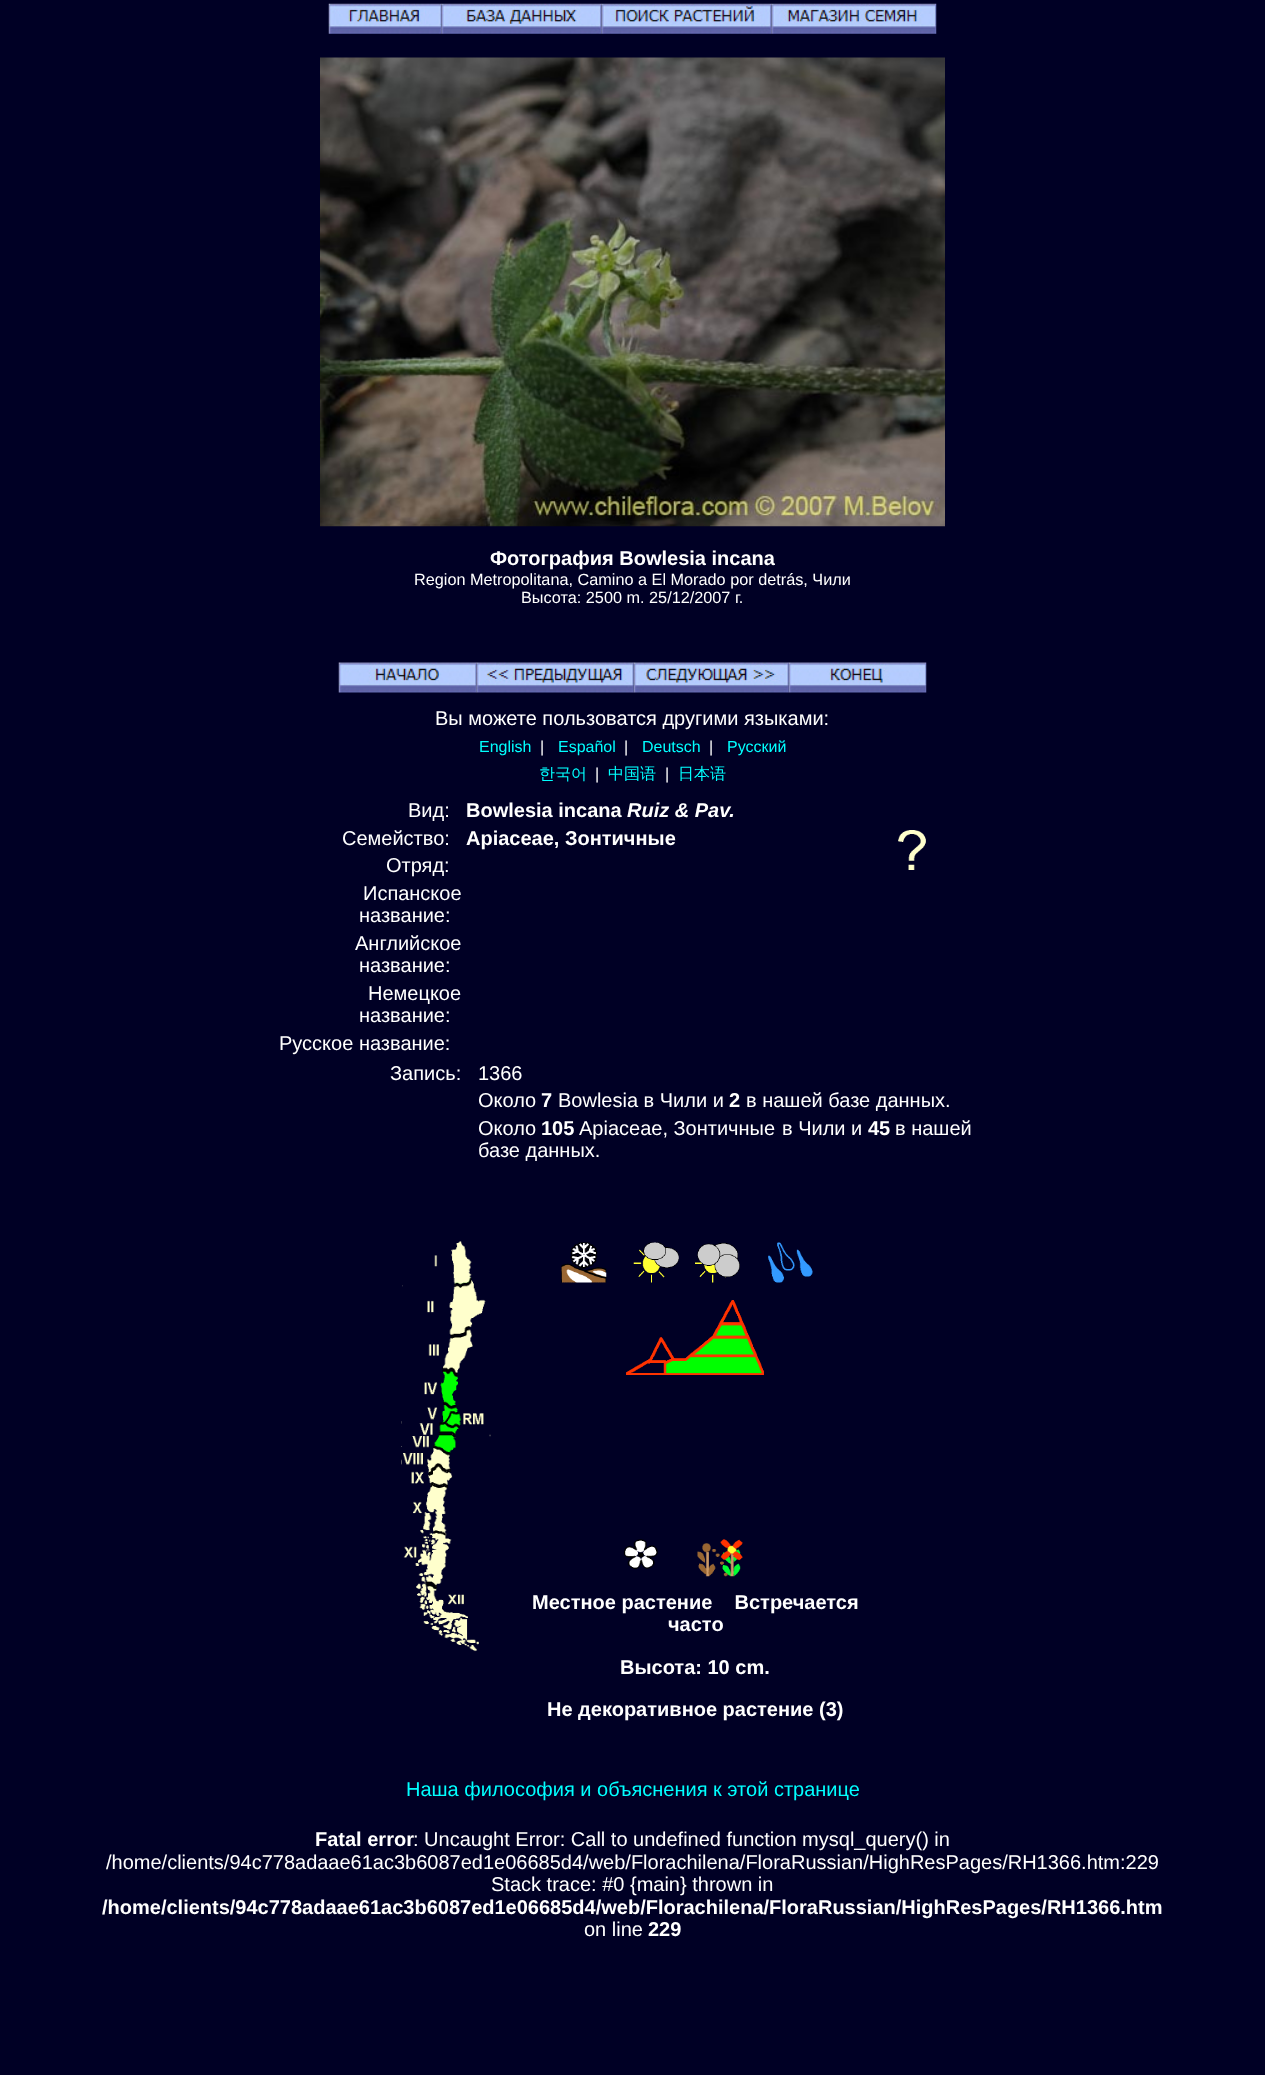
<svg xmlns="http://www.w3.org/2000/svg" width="1265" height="2075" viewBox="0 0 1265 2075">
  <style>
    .t1 { font: bold 20px Liberation Sans; fill: #fff; }
    .t2 { font: 16.25px Liberation Sans; fill: #fff; }
    .t3 { font: 20px Liberation Sans; fill: #fff; }
    .t4 { font: 16px Liberation Sans; fill: #0ff; }
    .t5 { font: 16px Liberation Sans; fill: #fff; }
    .t6 { font: 500 16px WenQuanYi Zen Hei; fill: #0ff; }
    .t7 { font: italic bold 20px Liberation Sans; fill: #fff; }
    .t8 { font: 20px Liberation Sans; fill: #0ff; }
  </style>
  <rect width="100%" height="100%" fill="#000025"/>
  <image x="328" y="3" width="114" height="31" href="images/1.png"/>
  <image x="441" y="3" width="161" height="31" href="images/2.png"/>
  <image x="601" y="3" width="171" height="31" href="images/3.png"/>
  <image x="771" y="3" width="166" height="31" href="images/4.png"/>
  <image x="320" y="57" width="625" height="470" href="images/5.png"/>
  <text x="490" y="565" class="t1">Фотография Bowlesia incana</text>
  <text x="414" y="585" class="t2">Region Metropolitana, Camino a El Morado por detrás, Чили</text>
  <text x="521" y="603" class="t2">Высота: 2500 m. 25/12/2007 г.</text>
  <image x="338" y="662" width="139" height="31" href="images/6.png"/>
  <image x="476" y="662" width="158" height="31" href="images/7.png"/>
  <image x="633" y="662" width="156" height="31" href="images/8.png"/>
  <image x="788" y="662" width="139" height="31" href="images/9.png"/>
  <text x="435" y="725" class="t3">Вы можете пользоватся другими языками:</text>
  <text x="479" y="752" class="t4">English</text>
  <text x="540" y="752" class="t5">|</text>
  <text x="558" y="752" class="t4">Español</text>
  <text x="624" y="752" class="t5">|</text>
  <text x="642" y="752" class="t4">Deutsch</text>
  <text x="709" y="752" class="t5">|</text>
  <text x="727" y="752" class="t4">Русский</text>
  <text x="539" y="779" class="t6">한국어</text>
  <text x="595" y="779" class="t5">|</text>
  <text x="608" y="779" class="t6">中国语</text>
  <text x="665" y="779" class="t5">|</text>
  <text x="678" y="779" class="t6">日本语</text>
  <text x="408" y="817" class="t3">Вид:</text>
  <text x="466" y="817" class="t1">Bowlesia incana</text>
  <text x="627" y="817" class="t7">Ruiz &amp; Pav.</text>
  <text x="342" y="845" class="t3">Семейство:</text>
  <text x="466" y="845" class="t1">Apiaceae, Зонтичные</text>
  <image x="898" y="830" width="28" height="40" href="images/10.png"/>
  <text x="386" y="872" class="t3">Отряд:</text>
  <text x="363" y="900" class="t3">Испанское</text>
  <text x="359" y="922" class="t3">название:</text>
  <text x="355" y="950" class="t3">Английское</text>
  <text x="359" y="972" class="t3">название:</text>
  <text x="368" y="1000" class="t3">Немецкое</text>
  <text x="359" y="1022" class="t3">название:</text>
  <text x="279" y="1050" class="t3">Русское название:</text>
  <text x="390" y="1080" class="t3">Запись:</text>
  <text x="478" y="1080" class="t3">1366</text>
  <text x="478" y="1107" class="t3">Около</text>
  <text x="541" y="1107" class="t1">7</text>
  <text x="558" y="1107" class="t3">Bowlesia в Чили и</text>
  <text x="729" y="1107" class="t1">2</text>
  <text x="746" y="1107" class="t3">в нашей базе данных.</text>
  <text x="478" y="1135" class="t3">Около</text>
  <text x="541" y="1135" class="t1">105</text>
  <text x="579" y="1135" class="t3">Apiaceae, Зонтичные</text>
  <text x="782" y="1135" class="t3">в Чили и</text>
  <text x="868" y="1135" class="t1">45</text>
  <text x="895" y="1135" class="t3">в нашей</text>
  <text x="478" y="1157" class="t3">базе данных.</text>
  <image x="402" y="1241" width="70" height="46" href="images/11.png"/>
  <image x="427" y="1278" width="59" height="59" href="images/12.png"/>
  <image x="428" y="1328" width="45" height="47" href="images/13.png"/>
  <image x="424" y="1370" width="34" height="38" href="images/14.png"/>
  <image x="401" y="1403" width="58" height="24" href="images/15.png"/>
  <image x="439" y="1411" width="45" height="17" href="images/16.png"/>
  <image x="401" y="1422" width="90" height="15" href="images/17.png"/>
  <image x="412" y="1433" width="44" height="21" href="images/18.png"/>
  <image x="401" y="1446" width="50" height="28" href="images/19.png"/>
  <image x="411" y="1465" width="42" height="22" href="images/20.png"/>
  <image x="413" y="1483" width="35" height="52" href="images/21.png"/>
  <image x="403" y="1531" width="49" height="57" href="images/22.png"/>
  <image x="416" y="1583" width="63" height="69" href="images/23.png"/>
  <image x="561" y="1242" width="46" height="41" href="images/24.png"/>
  <image x="633" y="1242" width="46" height="41" href="images/25.png"/>
  <image x="695" y="1242" width="45" height="41" href="images/26.png"/>
  <image x="768" y="1242" width="45" height="41" href="images/27.png"/>
  <image x="626" y="1300" width="138" height="75" href="images/28.png"/>
  <image x="626" y="1300" width="138" height="75" href="images/29.png"/>
  <image x="626" y="1300" width="138" height="75" href="images/30.png"/>
  <image x="623" y="1539" width="35" height="30" href="images/31.png"/>
  <image x="697" y="1539" width="46" height="38" href="images/32.png"/>
  <text x="532" y="1609" class="t1" xml:space="preserve">Местное растение    Встречается</text>
  <text x="668" y="1631" class="t1">часто</text>
  <text x="620" y="1674" class="t1">Высота: 10 cm.</text>
  <text x="547" y="1716" class="t1">Не декоративное растение (3)</text>
  <text x="406" y="1796" class="t8">Наша философия и объяснения к этой странице</text>
  <text x="315" y="1846" class="t1">Fatal error</text>
  <text x="413" y="1846" class="t3">: Uncaught Error: Call to undefined function mysql_query() in</text>
  <text x="106" y="1869" class="t3">/home/clients/94c778adaae61ac3b6087ed1e06685d4/web/Florachilena/FloraRussian/HighResPages/RH1366.htm:229</text>
  <text x="491" y="1891" class="t3">Stack trace: #0 {main} thrown in</text>
  <text x="102" y="1914" class="t1">/home/clients/94c778adaae61ac3b6087ed1e06685d4/web/Florachilena/FloraRussian/HighResPages/RH1366.htm</text>
  <text x="584" y="1936" class="t3">on line</text>
  <text x="648" y="1936" class="t1">229</text>
</svg>
